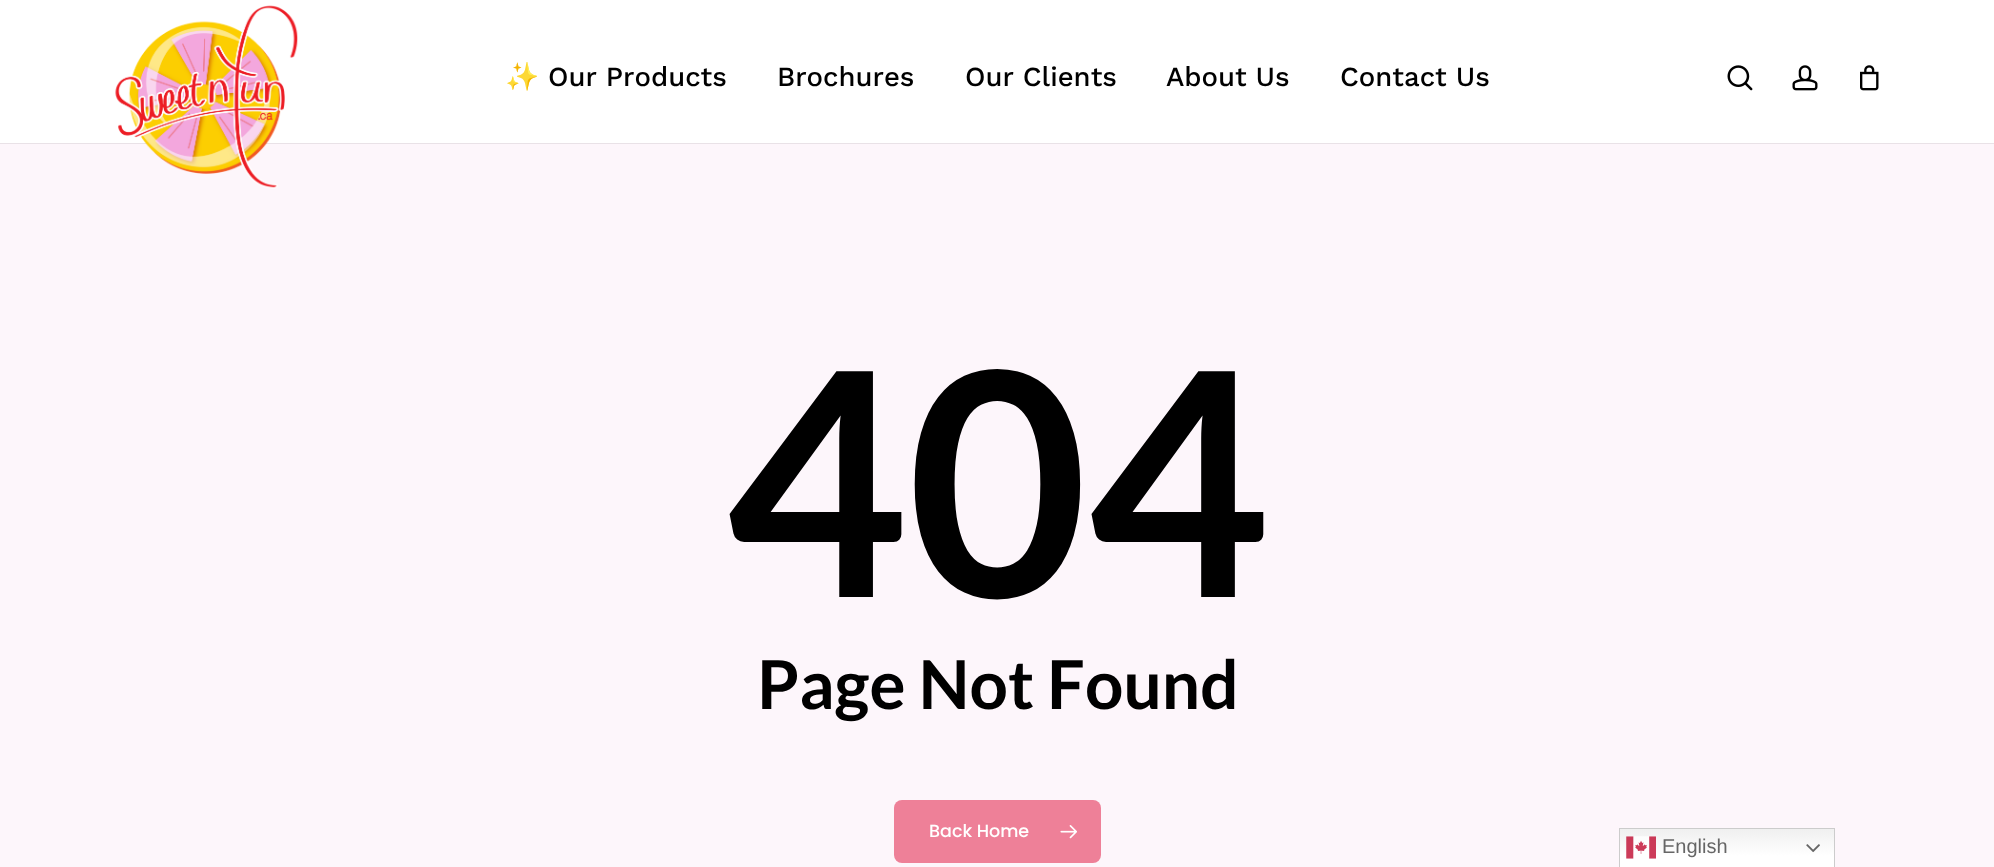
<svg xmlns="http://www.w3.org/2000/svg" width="1994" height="867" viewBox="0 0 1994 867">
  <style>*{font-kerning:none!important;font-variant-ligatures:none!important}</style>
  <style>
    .t1 { font: 27.5px Noto Color Emoji; fill: #000; }
    .t2 { font: 500 27.5px Work Sans; fill: #000; }
    .t3 { font: bold 312px Lato; fill: #000; }
    .t4 { font: bold 67.5px Lato; fill: #000; }
    .t5 { font: 500 17.5px Poppins; fill: #fff; }
    .t6 { font: 20px Liberation Sans; fill: #666; }
  </style>
  <defs>
    <linearGradient id="g1" gradientUnits="userSpaceOnUse" x1="1727" y1="828" x2="1727" y2="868"><stop offset="0" stop-color="#efefef"/><stop offset="0.7" stop-color="#fff"/></linearGradient>
  </defs>
  <rect width="100%" height="100%" fill="#fdf6fb"/>
  <rect x="0" y="143" width="1994" height="1" fill="#e9e2e7"/>
  <rect x="0" y="0" width="1994" height="143" fill="#fff"/>
  <image x="115" y="5" width="183" height="184" href="images/1.png"/>
  <text x="505" y="86" class="t1">✨</text>
  <text x="548" y="86" class="t2">Our Products</text>
  <text x="777" y="86" class="t2">Brochures</text>
  <text x="965" y="86" class="t2">Our Clients</text>
  <text x="1166" y="86" class="t2">About Us</text>
  <text x="1340" y="86" class="t2">Contact Us</text>
  <image x="1727" y="65" width="26" height="26" href="images/2.png"/>
  <image x="1792" y="65" width="26" height="26" href="images/3.png"/>
  <image x="1860" y="65" width="19" height="26" href="images/4.png"/>
  <text x="726" y="597" class="t3">404</text>
  <text x="757" y="709" class="t4">Page Not Found</text>
  <rect x="894" y="800" width="207" height="63" rx="8" fill="#ee8098"/>
  <text x="929" y="837" class="t5">Back Home</text>
  <image x="1060" y="825" width="17" height="14" href="images/5.png"/>
  <rect x="1620" y="829" width="214" height="38" fill="url(#g1)"/>
  <rect x="1619.5" y="828.5" width="215" height="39" fill="none" stroke="#ccc"/>
  <image x="1626" y="836" width="30" height="23" href="images/6.png"/>
  <text x="1662" y="853" class="t6">English</text>
  <image x="1806" y="844" width="14" height="9" href="images/7.png"/>
</svg>
